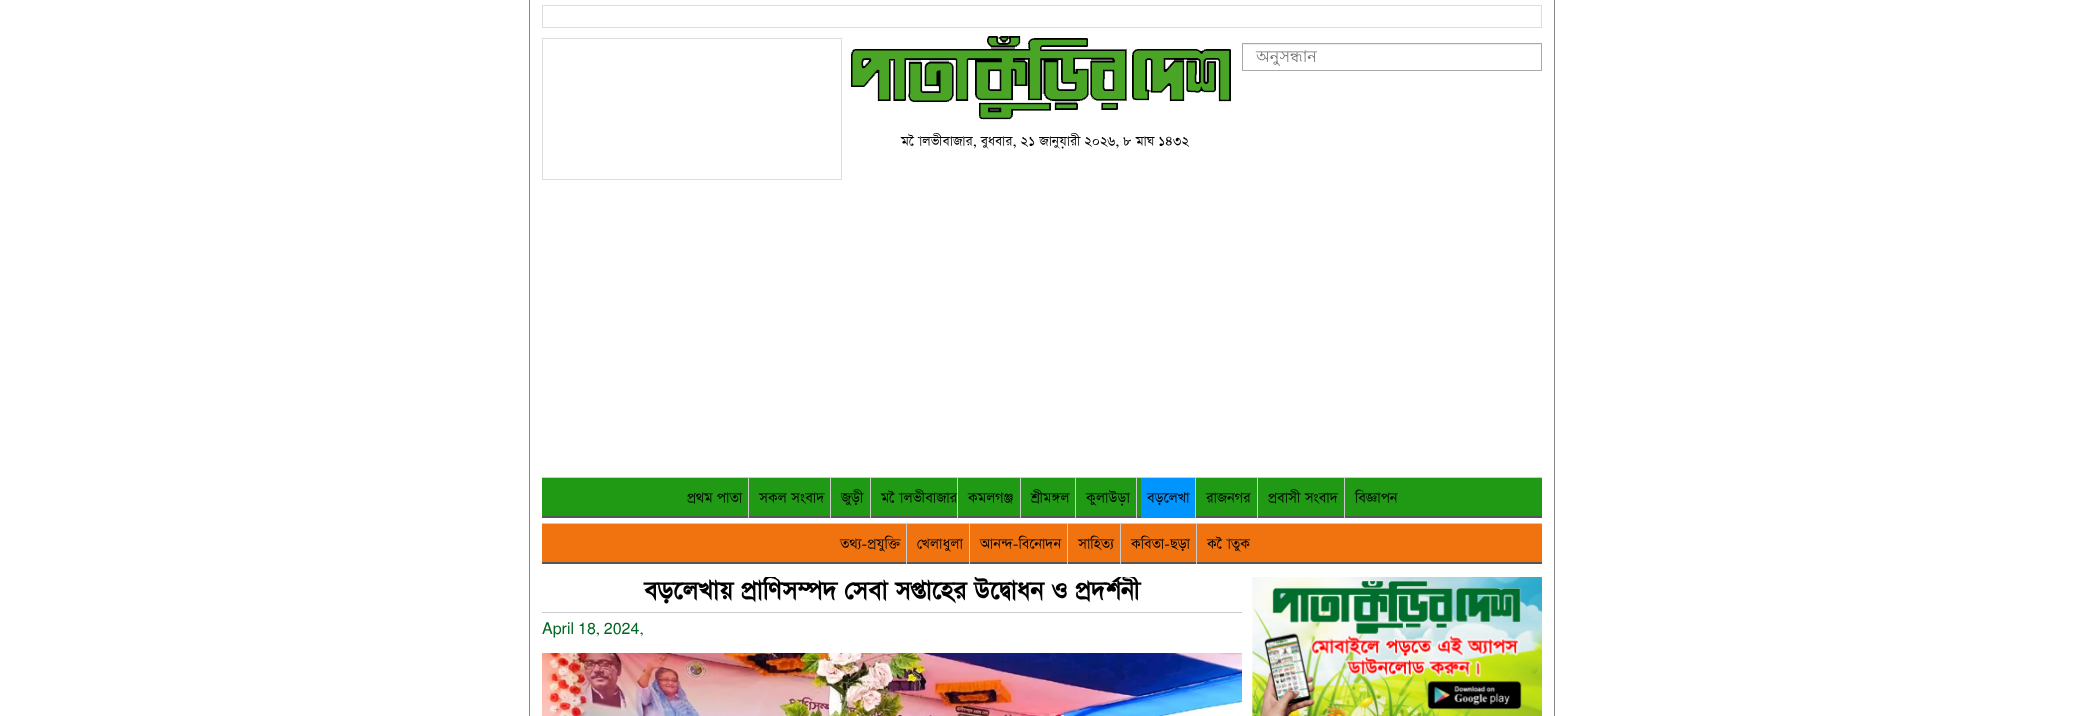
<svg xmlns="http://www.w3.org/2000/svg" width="2084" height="716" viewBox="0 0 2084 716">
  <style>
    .t1 { font: 16px Lohit Bengali; fill: #757575; }
    .t2 { font: 16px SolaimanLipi; fill: #000; }
    .t3 { font: 17px SolaimanLipi; fill: #000; }
    .t4 { font: bold 30px SolaimanLipi; fill: #000; }
    .t5 { font: 16px SolaimanLipi; fill: #062; }
  </style>
  <defs>
    <clipPath id="clip1"><rect x="542" y="577" width="700" height="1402"/></clipPath>
  </defs>
  <rect width="100%" height="100%" fill="#fff"/>
  <rect x="1554" y="0" width="1" height="716" fill="#888"/>
  <rect x="529" y="0" width="1" height="716" fill="#888"/>
  <rect x="542.5" y="5.5" width="999" height="22" fill="none" stroke="#ddd"/>
  <rect x="542.5" y="38.5" width="299" height="141" fill="none" stroke="#ddd"/>
  <rect x="1243" y="44" width="298" height="1" fill="#ececec"/>
  <rect x="1242.5" y="43.5" width="299" height="27" fill="none" stroke="#aaa"/>
  <text x="1256" y="62" class="t1">অনুসন্ধান</text>
  <image x="851" y="36" width="380" height="84" href="images/1.png"/>
  <text x="901" y="146" class="t2">মৌলভীবাজার, বুধবার, ২১ জানুয়ারী ২০২৬, ৮ মাঘ ১৪৩২</text>
  <rect x="542" y="477" width="1000" height="1" fill="#ccc"/>
  <rect x="542" y="478" width="1000" height="38" fill="#209915"/>
  <rect x="542" y="516" width="1000" height="2" fill="#555656"/>
  <rect x="748" y="478" width="1" height="40" fill="#ccc"/>
  <text x="687" y="503" class="t3">প্রথম পাতা</text>
  <rect x="830" y="478" width="1" height="40" fill="#ccc"/>
  <text x="759" y="503" class="t3">সকল সংবাদ</text>
  <rect x="870" y="478" width="1" height="40" fill="#ccc"/>
  <text x="841" y="503" class="t3">জুড়ী</text>
  <rect x="957" y="478" width="1" height="40" fill="#ccc"/>
  <text x="881" y="503" class="t3">মৌলভীবাজার</text>
  <rect x="1020" y="478" width="1" height="40" fill="#ccc"/>
  <text x="968" y="503" class="t3">কমলগঞ্জ</text>
  <rect x="1075" y="478" width="1" height="40" fill="#ccc"/>
  <text x="1031" y="503" class="t3">শ্রীমঙ্গল</text>
  <rect x="1136" y="478" width="1" height="40" fill="#ccc"/>
  <text x="1086" y="503" class="t3">কুলাউড়া</text>
  <rect x="1141" y="478" width="54" height="40" fill="#0094ff"/>
  <rect x="1195" y="478" width="1" height="40" fill="#ccc"/>
  <text x="1147" y="503" class="t3">বড়লেখা</text>
  <rect x="1257" y="478" width="1" height="40" fill="#ccc"/>
  <text x="1206" y="503" class="t3">রাজনগর</text>
  <rect x="1344" y="478" width="1" height="40" fill="#ccc"/>
  <text x="1268" y="503" class="t3">প্রবাসী সংবাদ</text>
  <text x="1355" y="503" class="t3">বিজ্ঞাপন</text>
  <rect x="542" y="523" width="1000" height="1" fill="#ccc"/>
  <rect x="542" y="524" width="1000" height="38" fill="#f1730f"/>
  <rect x="542" y="562" width="1000" height="2" fill="#555656"/>
  <rect x="906" y="524" width="1" height="40" fill="#ccc"/>
  <text x="840" y="549" class="t3">তথ্য-প্রযুক্তি</text>
  <rect x="969" y="524" width="1" height="40" fill="#ccc"/>
  <text x="917" y="549" class="t3">খেলাধুলা</text>
  <rect x="1067" y="524" width="1" height="40" fill="#ccc"/>
  <text x="980" y="549" class="t3">আনন্দ-বিনোদন</text>
  <rect x="1120" y="524" width="1" height="40" fill="#ccc"/>
  <text x="1078" y="549" class="t3">সাহিত্য</text>
  <rect x="1196" y="524" width="1" height="40" fill="#ccc"/>
  <text x="1131" y="549" class="t3">কবিতা-ছড়া</text>
  <text x="1207" y="549" class="t3">কৌতুক</text>
  <rect x="542" y="612" width="700" height="1" fill="#ccc"/>
  <g clip-path="url(#clip1)">
    <text x="644" y="600" class="t4">বড়লেখায় প্রাণিসম্পদ সেবা সপ্তাহের উদ্বোধন ও প্রদর্শনী</text>
  </g>
  <text x="542" y="634" class="t5">April 18, 2024,</text>
  <image x="542" y="653" width="700" height="63" href="images/2.png"/>
  <image x="1252" y="577" width="290" height="139" href="images/3.png"/>
</svg>
